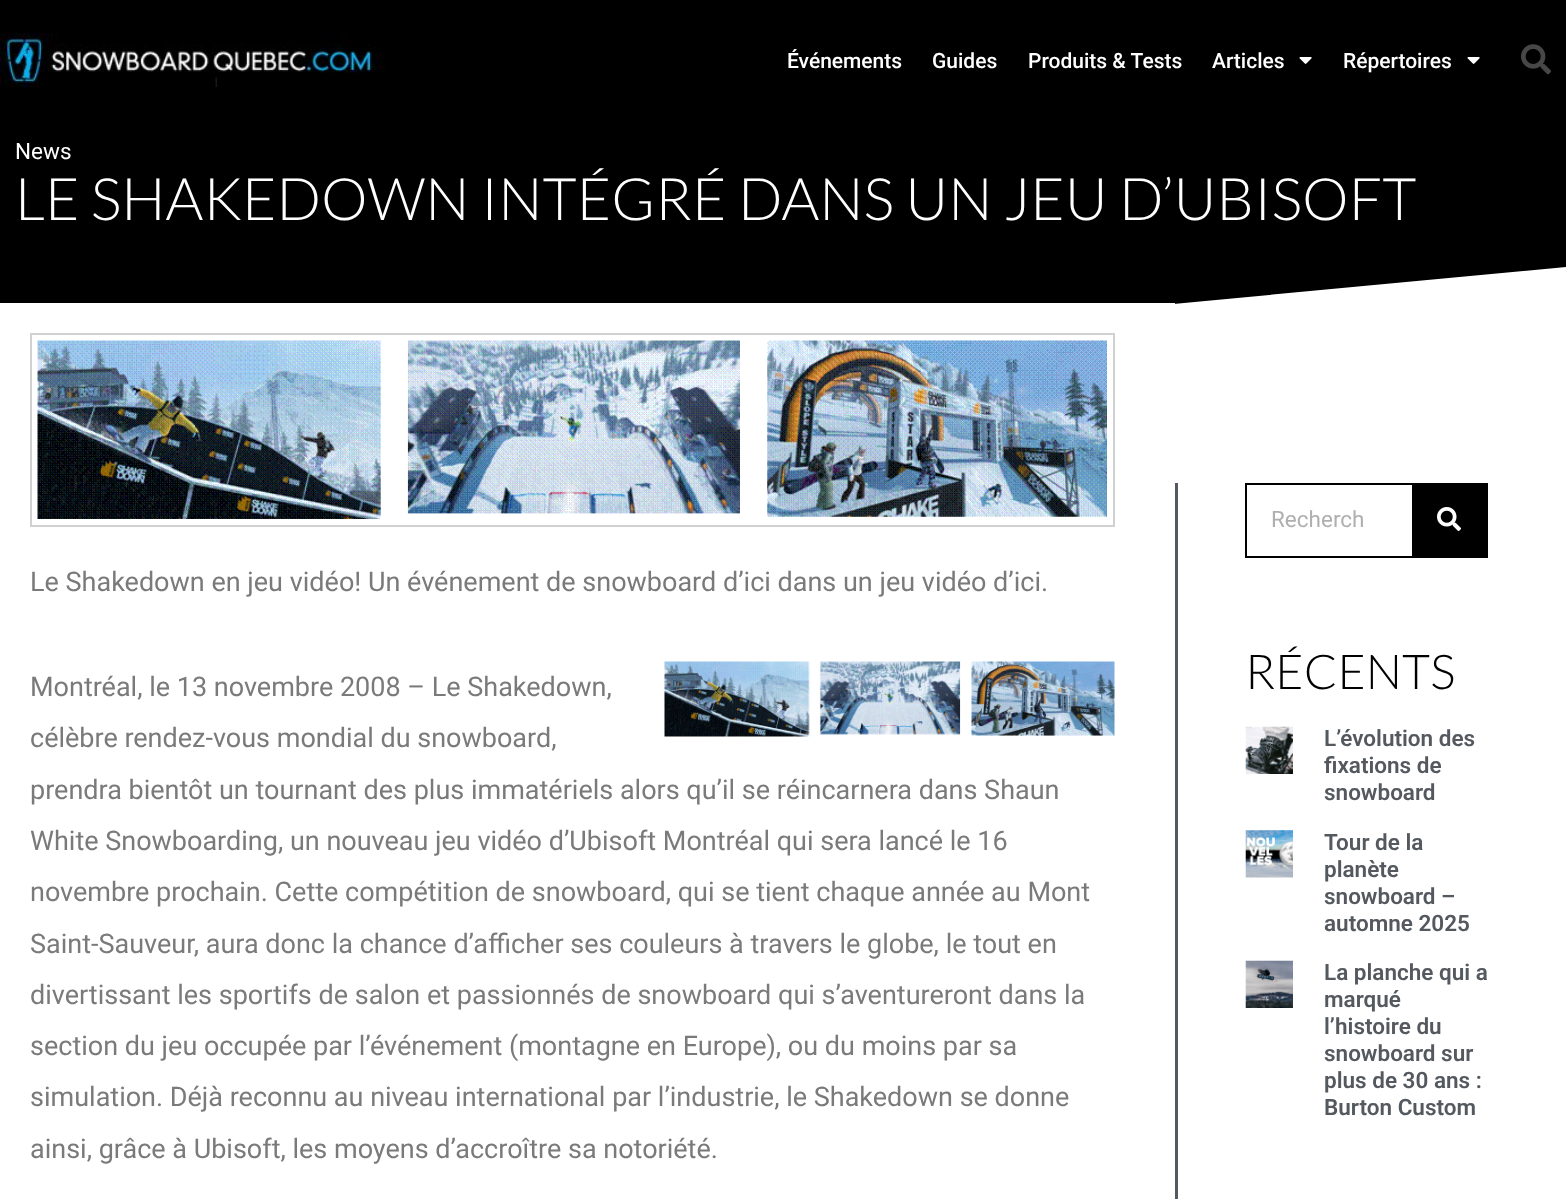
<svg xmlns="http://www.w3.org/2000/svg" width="1566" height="1199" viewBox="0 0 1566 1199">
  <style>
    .t1 { font: 500 21px Roboto; fill: #fff; }
    .t2 { font: 22.5px Roboto; fill: #fff; }
    .t3 { font: 300 58.5px Lato; fill: #fff; }
    .t4 { font: 27px Roboto; fill: #7a7a7a; }
    .t5 { font: 22.5px Roboto; fill: #afafaf; }
    .t6 { font: 300 48px Lato; fill: #000; }
    .t7 { font: 600 22.5px Roboto; fill: #54595f; }
  </style>
  <defs>
    <clipPath id="clip1"><rect x="0" y="267" width="1566" height="156"/></clipPath>
  </defs>
  <rect width="100%" height="100%" fill="#fff"/>
  <rect x="0" y="0" width="1566" height="304" fill="#000"/>
  <image x="0" y="33" width="385" height="54" href="images/1.png"/>
  <text x="787" y="68" class="t1">Événements</text>
  <text x="932" y="68" class="t1">Guides</text>
  <text x="1028" y="68" class="t1">Produits &amp; Tests</text>
  <text x="1212" y="68" class="t1">Articles</text>
  <image x="1299" y="57" width="13" height="7" href="images/2.png"/>
  <text x="1343" y="68" class="t1">Répertoires</text>
  <image x="1467" y="57" width="13" height="7" href="images/2.png"/>
  <image x="1521" y="44" width="30" height="31" href="images/3.png"/>
  <text x="15" y="159" class="t2">News</text>
  <text x="15" y="220" class="t3">LE SHAKEDOWN INTÉGRÉ DANS UN JEU D’UBISOFT</text>
  <g clip-path="url(#clip1)">
    <path d="M-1 414V424H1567V267Z" fill="#fff"/>
  </g>
  <rect x="0" y="303" width="1175" height="1" fill="#fff"/>
  <rect x="31" y="334" width="1083" height="192" fill="none" stroke="#d1d1d1" stroke-width="2"/>
  <image x="37" y="340" width="1070" height="179" href="images/4.png"/>
  <text x="30" y="591" class="t4">Le Shakedown en jeu vidéo! Un événement de snowboard d’ici dans un jeu vidéo d’ici.</text>
  <text x="30" y="696" class="t4">Montréal, le 13 novembre 2008 – Le Shakedown,</text>
  <image x="664" y="661" width="451" height="76" href="images/5.png"/>
  <text x="30" y="747" class="t4">célèbre rendez-vous mondial du snowboard,</text>
  <text x="30" y="799" class="t4">prendra bientôt un tournant des plus immatériels alors qu’il se réincarnera dans Shaun</text>
  <text x="30" y="850" class="t4">White Snowboarding, un nouveau jeu vidéo d’Ubisoft Montréal qui sera lancé le 16</text>
  <text x="30" y="901" class="t4">novembre prochain. Cette compétition de snowboard, qui se tient chaque année au Mont</text>
  <text x="30" y="953" class="t4">Saint-Sauveur, aura donc la chance d’afficher ses couleurs à travers le globe, le tout en</text>
  <text x="30" y="1004" class="t4">divertissant les sportifs de salon et passionnés de snowboard qui s’aventureront dans la</text>
  <text x="30" y="1055" class="t4">section du jeu occupée par l’événement (montagne en Europe), ou du moins par sa</text>
  <text x="30" y="1106" class="t4">simulation. Déjà reconnu au niveau international par l’industrie, le Shakedown se donne</text>
  <text x="30" y="1158" class="t4">ainsi, grâce à Ubisoft, les moyens d’accroître sa notoriété.</text>
  <rect x="1175" y="483" width="3" height="716" fill="#54595f"/>
  <rect x="1246" y="484" width="241" height="73" fill="none" stroke="#000" stroke-width="2"/>
  <text x="1271" y="527" class="t5">Recherch</text>
  <rect x="1412" y="485" width="74" height="71" fill="#000"/>
  <image x="1437" y="507" width="24" height="24" href="images/6.png"/>
  <text x="1245" y="689" class="t6">RÉCENTS</text>
  <image x="1245" y="726" width="48" height="48" href="images/7.png"/>
  <text x="1324" y="746" class="t7">L’évolution des</text>
  <text x="1324" y="773" class="t7">fixations de</text>
  <text x="1324" y="800" class="t7">snowboard</text>
  <image x="1245" y="830" width="48" height="48" href="images/8.png"/>
  <text x="1324" y="850" class="t7">Tour de la</text>
  <text x="1324" y="877" class="t7">planète</text>
  <text x="1324" y="904" class="t7">snowboard –</text>
  <text x="1324" y="931" class="t7">automne 2025</text>
  <image x="1245" y="960" width="48" height="48" href="images/9.png"/>
  <text x="1324" y="980" class="t7">La planche qui a</text>
  <text x="1324" y="1007" class="t7">marqué</text>
  <text x="1324" y="1034" class="t7">l’histoire du</text>
  <text x="1324" y="1061" class="t7">snowboard sur</text>
  <text x="1324" y="1088" class="t7">plus de 30 ans :</text>
  <text x="1324" y="1115" class="t7">Burton Custom</text>
</svg>
